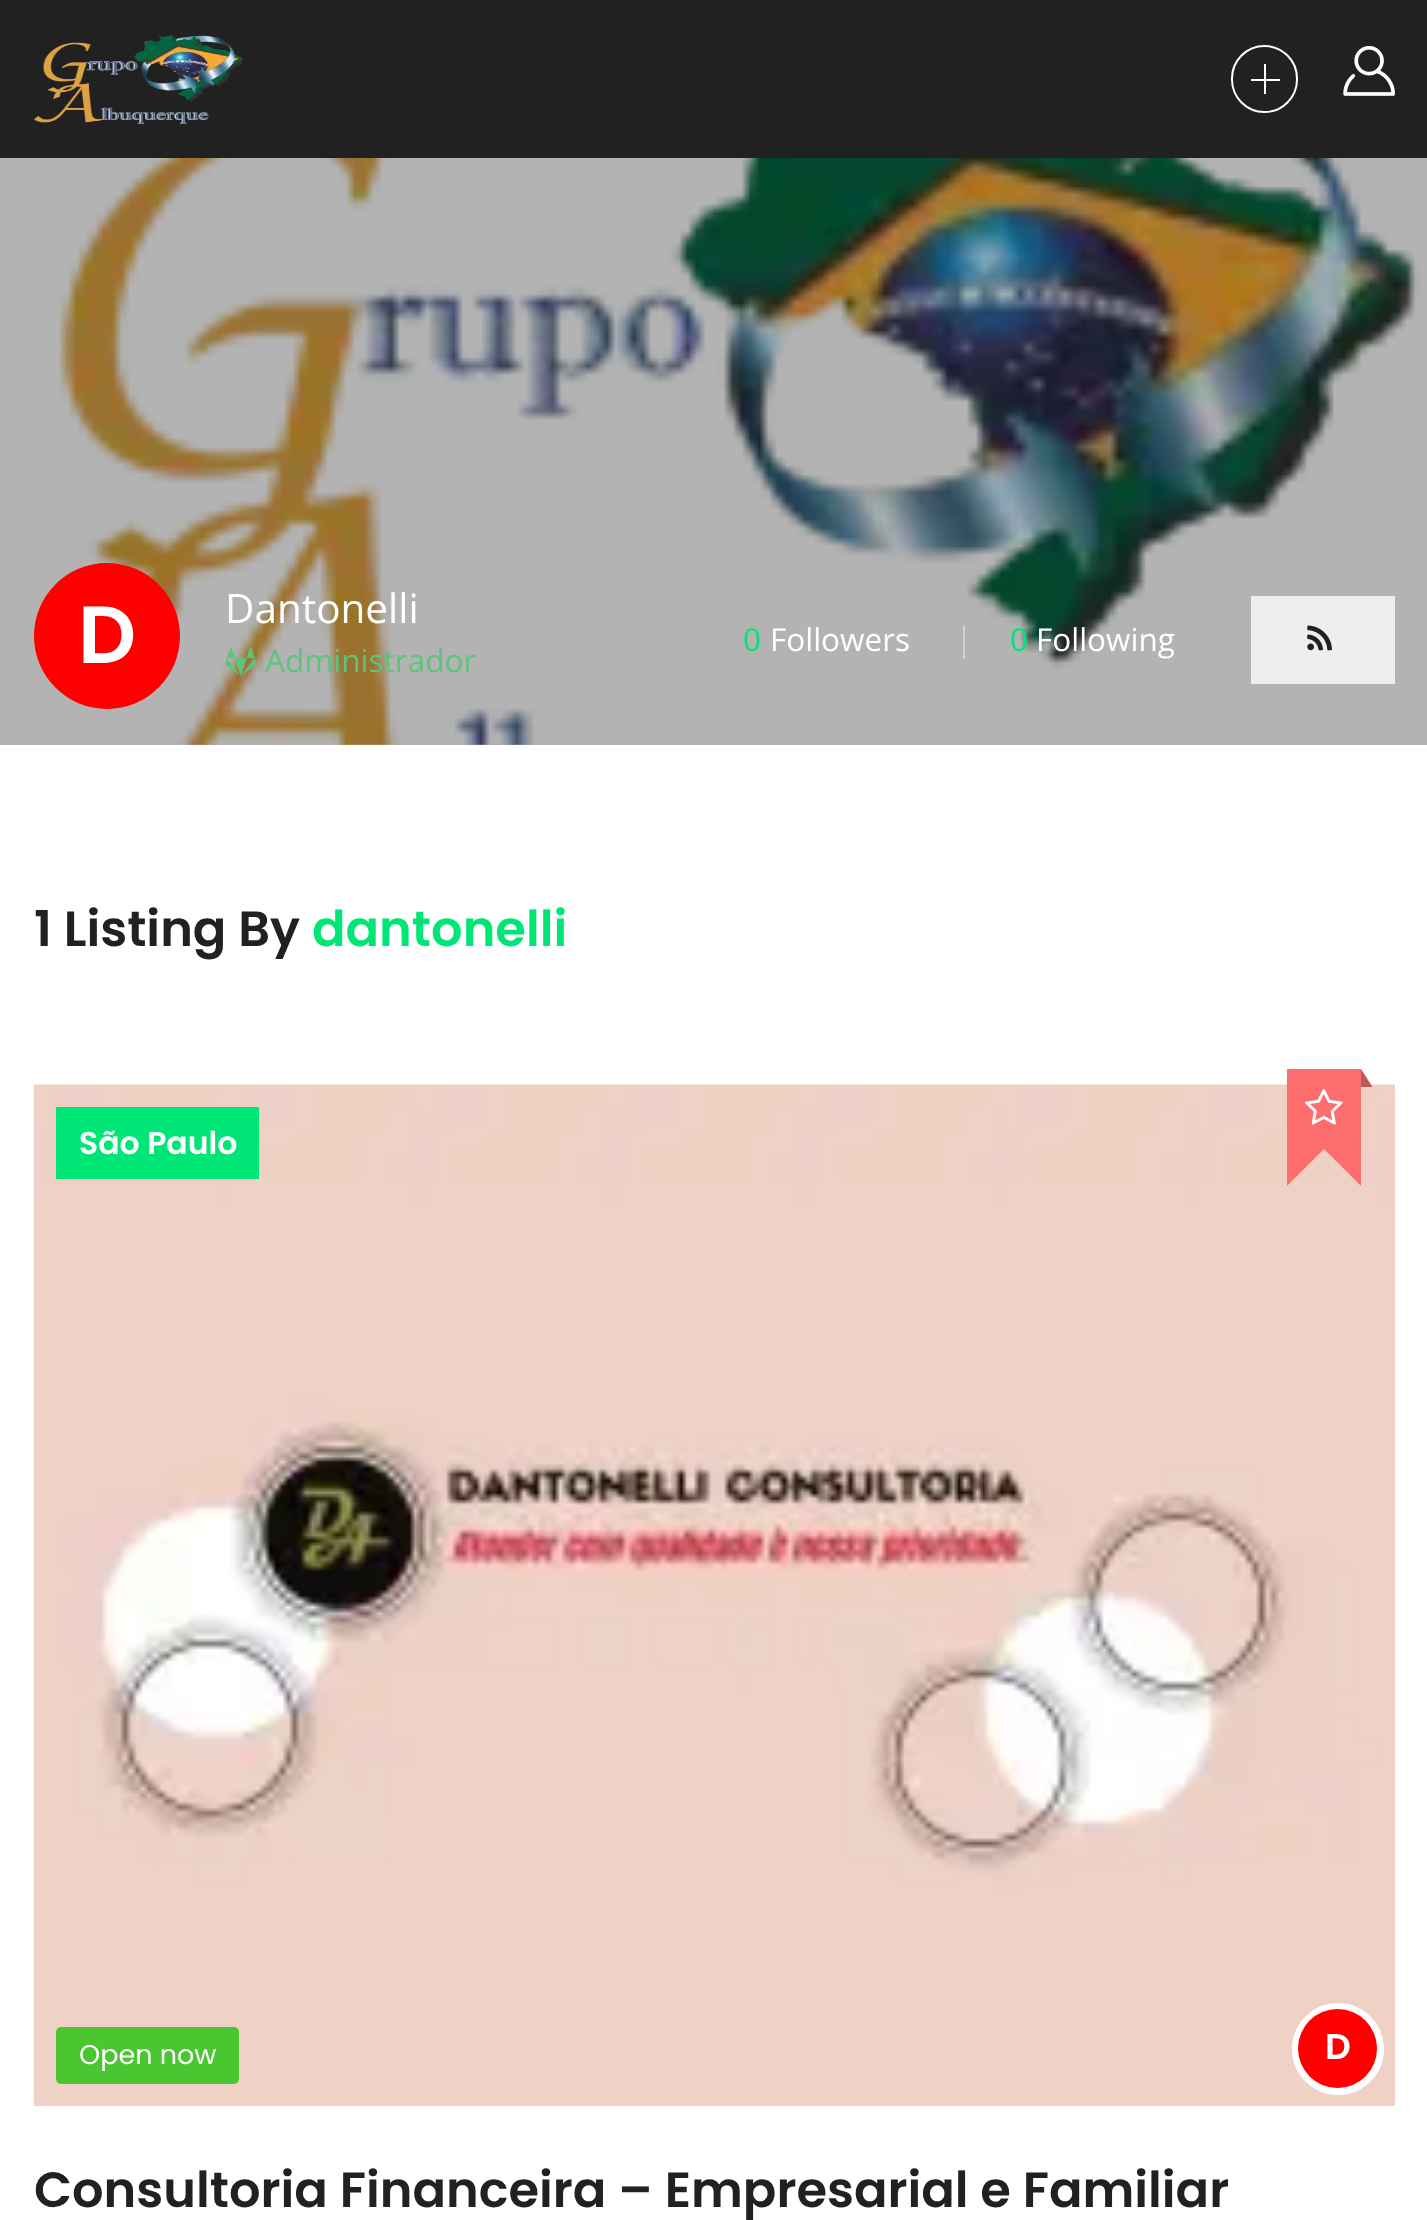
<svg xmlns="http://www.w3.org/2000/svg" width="1427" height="2220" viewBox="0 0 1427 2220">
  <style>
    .t1 { font: 600 81px Poppins; fill: #fff; }
    .t2 { font: 40.5px Open Sans; fill: #fff; }
    .t3 { font: 31.5px Open Sans; fill: #5dc57b; }
    .t4 { font: 31.5px Open Sans; fill: #00e676; }
    .t5 { font: 31.5px Open Sans; fill: #fff; }
    .t6 { font: 600 49.5px Poppins; fill: #212122; }
    .t7 { font: 600 49.5px Poppins; fill: #00e676; }
    .t8 { font: 600 31.5px Poppins; fill: #fff; }
    .t9 { font: 27px Poppins; fill: #fff; }
    .t10 { font: 600 36px Poppins; fill: #fff; }
  </style>
  <rect width="100%" height="100%" fill="#fff"/>
  <rect x="0" y="158" width="1427" height="587" fill="#b3b3b3"/>
  <rect x="0" y="0" width="1427" height="158" fill="#212122"/>
  <image x="34" y="34" width="209" height="90" href="images/1.png"/>
  <rect x="1232" y="46" width="65" height="66" rx="32.5" fill="none" stroke="#fff" stroke-width="2"/>
  <rect x="1264" y="64" width="2" height="30" fill="#fff"/>
  <rect x="1251" y="79" width="29" height="2" fill="#fff"/>
  <image x="1343" y="46" width="52" height="50" href="images/2.png"/>
  <image x="59" y="158" width="1363" height="587" href="images/3.png"/>
  <circle cx="107" cy="636" r="73" fill="#f00"/>
  <text x="78" y="663" class="t1">D</text>
  <text x="225" y="623" class="t2">Dantonelli</text>
  <image x="225" y="647" width="32" height="29" href="images/4.png"/>
  <text x="265" y="672" class="t3">Administrador</text>
  <text x="743" y="651" class="t4">0</text>
  <text x="770" y="651" class="t5">Followers</text>
  <rect x="963" y="626" width="2" height="33" fill="#d1d1d1"/>
  <text x="1010" y="651" class="t4">0</text>
  <text x="1036" y="651" class="t5">Following</text>
  <rect x="1251" y="596" width="144" height="88" fill="#eee"/>
  <image x="1307" y="625" width="25" height="26" href="images/5.png"/>
  <text x="34" y="946" class="t6">1 Listing By</text>
  <text x="312" y="946" class="t7">dantonelli</text>
  <image x="33" y="1084" width="1362" height="1022" href="images/7.png"/>
  <rect x="1287" y="1069" width="74" height="64" fill="#fe6d6d"/>
  <path d="M1361 1087V1069L1372.5 1087Z" fill="#b75a5a"/>
  <path d="M1287 1186V1096L1332 1141Z" fill="#fe6d6d"/>
  <path d="M1361 1096V1186L1316 1141Z" fill="#fe6d6d"/>
  <image x="1305" y="1088" width="38" height="37" href="images/6.png"/>
  <rect x="56" y="1107" width="203" height="72" fill="#00e676"/>
  <text x="79" y="1154" class="t8">São Paulo</text>
  <rect x="56" y="2027" width="183" height="57" rx="5" fill="#49c630"/>
  <text x="79" y="2064" class="t9">Open now</text>
  <circle cx="1338" cy="2049" r="42.5" fill="none" stroke="#fff" stroke-width="7"/>
  <circle cx="1337.5" cy="2048.5" r="39.5" fill="#f00"/>
  <text x="1325" y="2059" class="t10">D</text>
  <text x="34" y="2207" class="t6">Consultoria Financeira – Empresarial e Familiar</text>
</svg>
